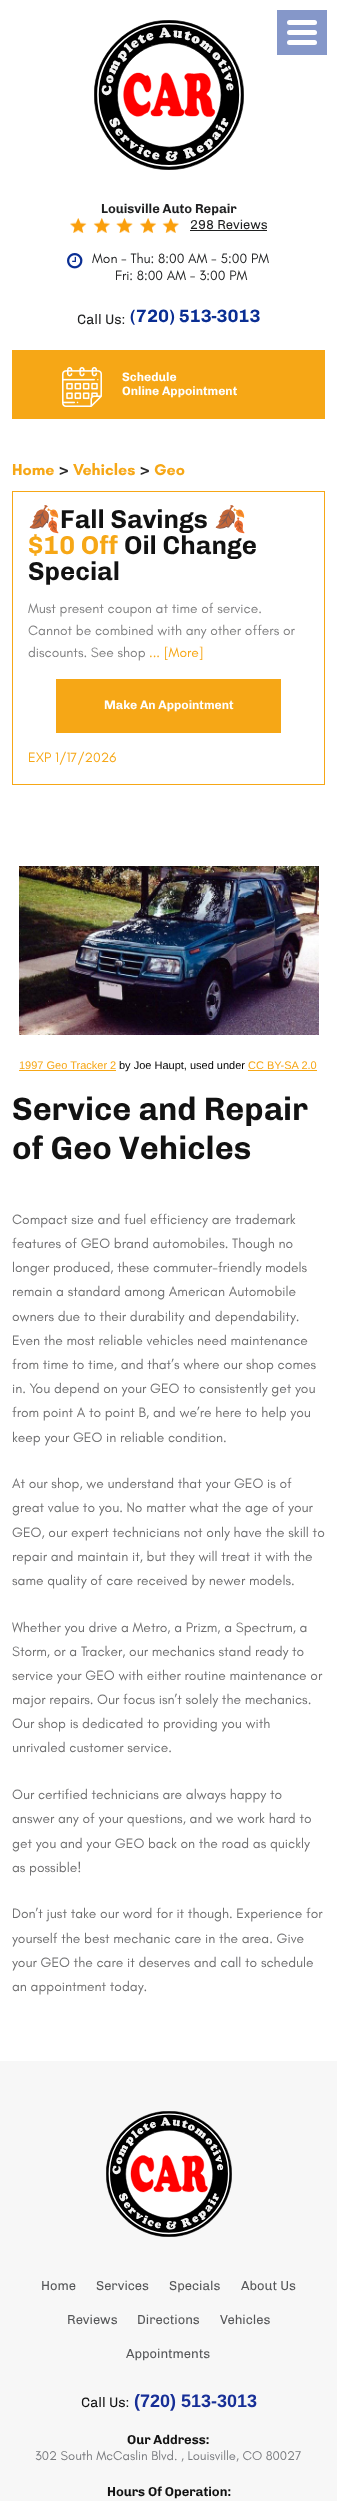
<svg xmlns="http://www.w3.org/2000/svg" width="337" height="2501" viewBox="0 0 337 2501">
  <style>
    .t1 { font: bold 13px Chivo; fill: #1f2021; }
    .t2 { font: 13px Chivo; fill: #1f2021; }
    .t3 { font: 13.8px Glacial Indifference; fill: #1f2021; }
    .t4 { font: 13.8px Chivo; fill: #1f2021; }
    .t5 { font: bold 18px Chivo; fill: #0a2e93; }
    .t6 { font: bold 12.25px Chivo; fill: #fff; }
    .t7 { font: bold 16px Glacial Indifference; fill: #f6a716; }
    .t8 { font: bold 16px Chivo; fill: #2a2929; }
    .t9 { font: bold 26px Noto Color Emoji; fill: #121212; }
    .t10 { font: bold 26px Chivo; fill: #121212; }
    .t11 { font: bold 26px Chivo; fill: #f6a716; }
    .t12 { font: 13.8px Glacial Indifference; fill: #818182; }
    .t13 { font: 13.8px Glacial Indifference; fill: #f6a716; }
    .t14 { font: 11px Liberation Sans; fill: #f6a716; }
    .t15 { font: 11px Liberation Sans; fill: #000; }
    .t16 { font: bold 32.5px Chivo; fill: #121212; }
    .t17 { font: 13.8px Glacial Indifference; fill: #6f6f70; }
    .t18 { font: 13px Chivo; fill: #565759; }
    .t19 { font: 13.8px Chivo; fill: #121212; }
    .t20 { font: bold 18px Liberation Sans; fill: #172f97; }
    .t21 { font: bold 13px Chivo; fill: #121212; }
    .t22 { font: 13px Glacial Indifference; fill: #7a7c80; }
  </style>
  <rect width="100%" height="100%" fill="#fff"/>
  <image x="94" y="20" width="150" height="150" href="images/1.png"/>
  <rect x="277" y="10" width="50" height="45" fill="#8597c9"/>
  <rect x="287" y="30" width="30" height="5" rx="2.5" fill="#fff"/>
  <rect x="287" y="20" width="30" height="5" rx="2.5" fill="#fff"/>
  <rect x="287" y="40" width="30" height="5" rx="2.5" fill="#fff"/>
  <text x="101" y="213" class="t1">Louisville Auto Repair</text>
  <image x="70" y="218" width="109" height="15" href="images/2.png"/>
  <text x="190" y="229" class="t2">298 Reviews</text>
  <rect x="190" y="230" width="77" height="1" fill="#1f2021"/>
  <image x="67" y="253" width="16" height="16" href="images/3.png"/>
  <text x="92" y="263" class="t3">Mon - Thu: 8:00 AM - 5:00 PM</text>
  <text x="115" y="280" class="t3">Fri: 8:00 AM - 3:00 PM</text>
  <text x="77" y="324" class="t4">Call Us:</text>
  <text x="130" y="322" class="t5">(720) 513-3013</text>
  <rect x="12" y="350" width="313" height="69" fill="#f6a716"/>
  <image x="62" y="367" width="40" height="40" href="images/4.png"/>
  <text x="122" y="381" class="t6">Schedule</text>
  <text x="122" y="395" class="t6">Online Appointment</text>
  <text x="12" y="475" class="t7">Home</text>
  <text x="59" y="475" class="t8">&gt;</text>
  <text x="73" y="475" class="t7">Vehicles</text>
  <text x="140" y="475" class="t8">&gt;</text>
  <text x="154" y="475" class="t7">Geo</text>
  <rect x="12.5" y="491.5" width="312" height="293" fill="none" stroke="#f6a716"/>
  <text x="28" y="528" class="t9">🍂</text>
  <text x="60" y="528" class="t10">Fall Savings</text>
  <text x="214" y="528" class="t9">🍂</text>
  <text x="28" y="554" class="t11">$10 Off</text>
  <text x="124" y="554" class="t10">Oil Change</text>
  <text x="28" y="580" class="t10">Special</text>
  <text x="28" y="613" class="t12">Must present coupon at time of service.</text>
  <text x="28" y="635" class="t12">Cannot be combined with any other offers or</text>
  <text x="28" y="657" class="t12">discounts. See shop</text>
  <text x="149" y="657" class="t13">... [More]</text>
  <rect x="56" y="679" width="225" height="54" fill="#f6a716"/>
  <text x="104" y="709" class="t6">Make An Appointment</text>
  <text x="28" y="762" class="t13">EXP 1/17/2026</text>
  <image x="19" y="866" width="300" height="169" href="images/5.png"/>
  <text x="19" y="1069" class="t14">1997 Geo Tracker 2</text>
  <rect x="19" y="1070" width="97" height="1" fill="#f6a716"/>
  <text x="119" y="1069" class="t15">by Joe Haupt, used under</text>
  <text x="248" y="1069" class="t14">CC BY-SA 2.0</text>
  <rect x="248" y="1070" width="69" height="1" fill="#f6a716"/>
  <text x="12" y="1120" class="t16">Service and Repair</text>
  <text x="12" y="1159" class="t16">of Geo Vehicles</text>
  <text x="12" y="1224" class="t17">Compact size and fuel efficiency are trademark</text>
  <text x="12" y="1248" class="t17">features of GEO brand automobiles. Though no</text>
  <text x="12" y="1272" class="t17">longer produced, these commuter-friendly models</text>
  <text x="12" y="1296" class="t17">remain a standard among American Automobile</text>
  <text x="12" y="1321" class="t17">owners due to their durability and dependability.</text>
  <text x="12" y="1345" class="t17">Even the most reliable vehicles need maintenance</text>
  <text x="12" y="1369" class="t17">from time to time, and that’s where our shop comes</text>
  <text x="12" y="1393" class="t17">in. You depend on your GEO to consistently get you</text>
  <text x="12" y="1417" class="t17">from point A to point B, and we’re here to help you</text>
  <text x="12" y="1442" class="t17">keep your GEO in reliable condition.</text>
  <text x="12" y="1488" class="t17">At our shop, we understand that your GEO is of</text>
  <text x="12" y="1512" class="t17">great value to you. No matter what the age of your</text>
  <text x="12" y="1537" class="t17">GEO, our expert technicians not only have the skill to</text>
  <text x="12" y="1561" class="t17">repair and maintain it, but they will treat it with the</text>
  <text x="12" y="1585" class="t17">same quality of care received by newer models.</text>
  <text x="12" y="1632" class="t17">Whether you drive a Metro, a Prizm, a Spectrum, a</text>
  <text x="12" y="1656" class="t17">Storm, or a Tracker, our mechanics stand ready to</text>
  <text x="12" y="1680" class="t17">service your GEO with either routine maintenance or</text>
  <text x="12" y="1704" class="t17">major repairs. Our focus isn’t solely the mechanics.</text>
  <text x="12" y="1728" class="t17">Our shop is dedicated to providing you with</text>
  <text x="12" y="1752" class="t17">unrivaled customer service.</text>
  <text x="12" y="1799" class="t17">Our certified technicians are always happy to</text>
  <text x="12" y="1823" class="t17">answer any of your questions, and we work hard to</text>
  <text x="12" y="1848" class="t17">get you and your GEO back on the road as quickly</text>
  <text x="12" y="1872" class="t17">as possible!</text>
  <text x="12" y="1918" class="t17">Don’t just take our word for it though. Experience for</text>
  <text x="12" y="1943" class="t17">yourself the best mechanic care in the area. Give</text>
  <text x="12" y="1967" class="t17">your GEO the care it deserves and call to schedule</text>
  <text x="12" y="1991" class="t17">an appointment today.</text>
  <rect x="0" y="2061" width="337" height="440" fill="#f7f7f7"/>
  <image x="106" y="2111" width="126" height="126" href="images/6.png"/>
  <text x="41" y="2290" class="t18">Home</text>
  <text x="96" y="2290" class="t18">Services</text>
  <text x="169" y="2290" class="t18">Specials</text>
  <text x="241" y="2290" class="t18">About Us</text>
  <text x="67" y="2324" class="t18">Reviews</text>
  <text x="137" y="2324" class="t18">Directions</text>
  <text x="220" y="2324" class="t18">Vehicles</text>
  <text x="126" y="2358" class="t18">Appointments</text>
  <text x="81" y="2407" class="t19">Call Us:</text>
  <text x="134" y="2407" class="t20">(720) 513-3013</text>
  <text x="127" y="2444" class="t21">Our Address:</text>
  <text x="35" y="2460" class="t22">302 South McCaslin Blvd. , Louisville, CO 80027</text>
  <text x="107" y="2496" class="t21">Hours Of Operation:</text>
</svg>
